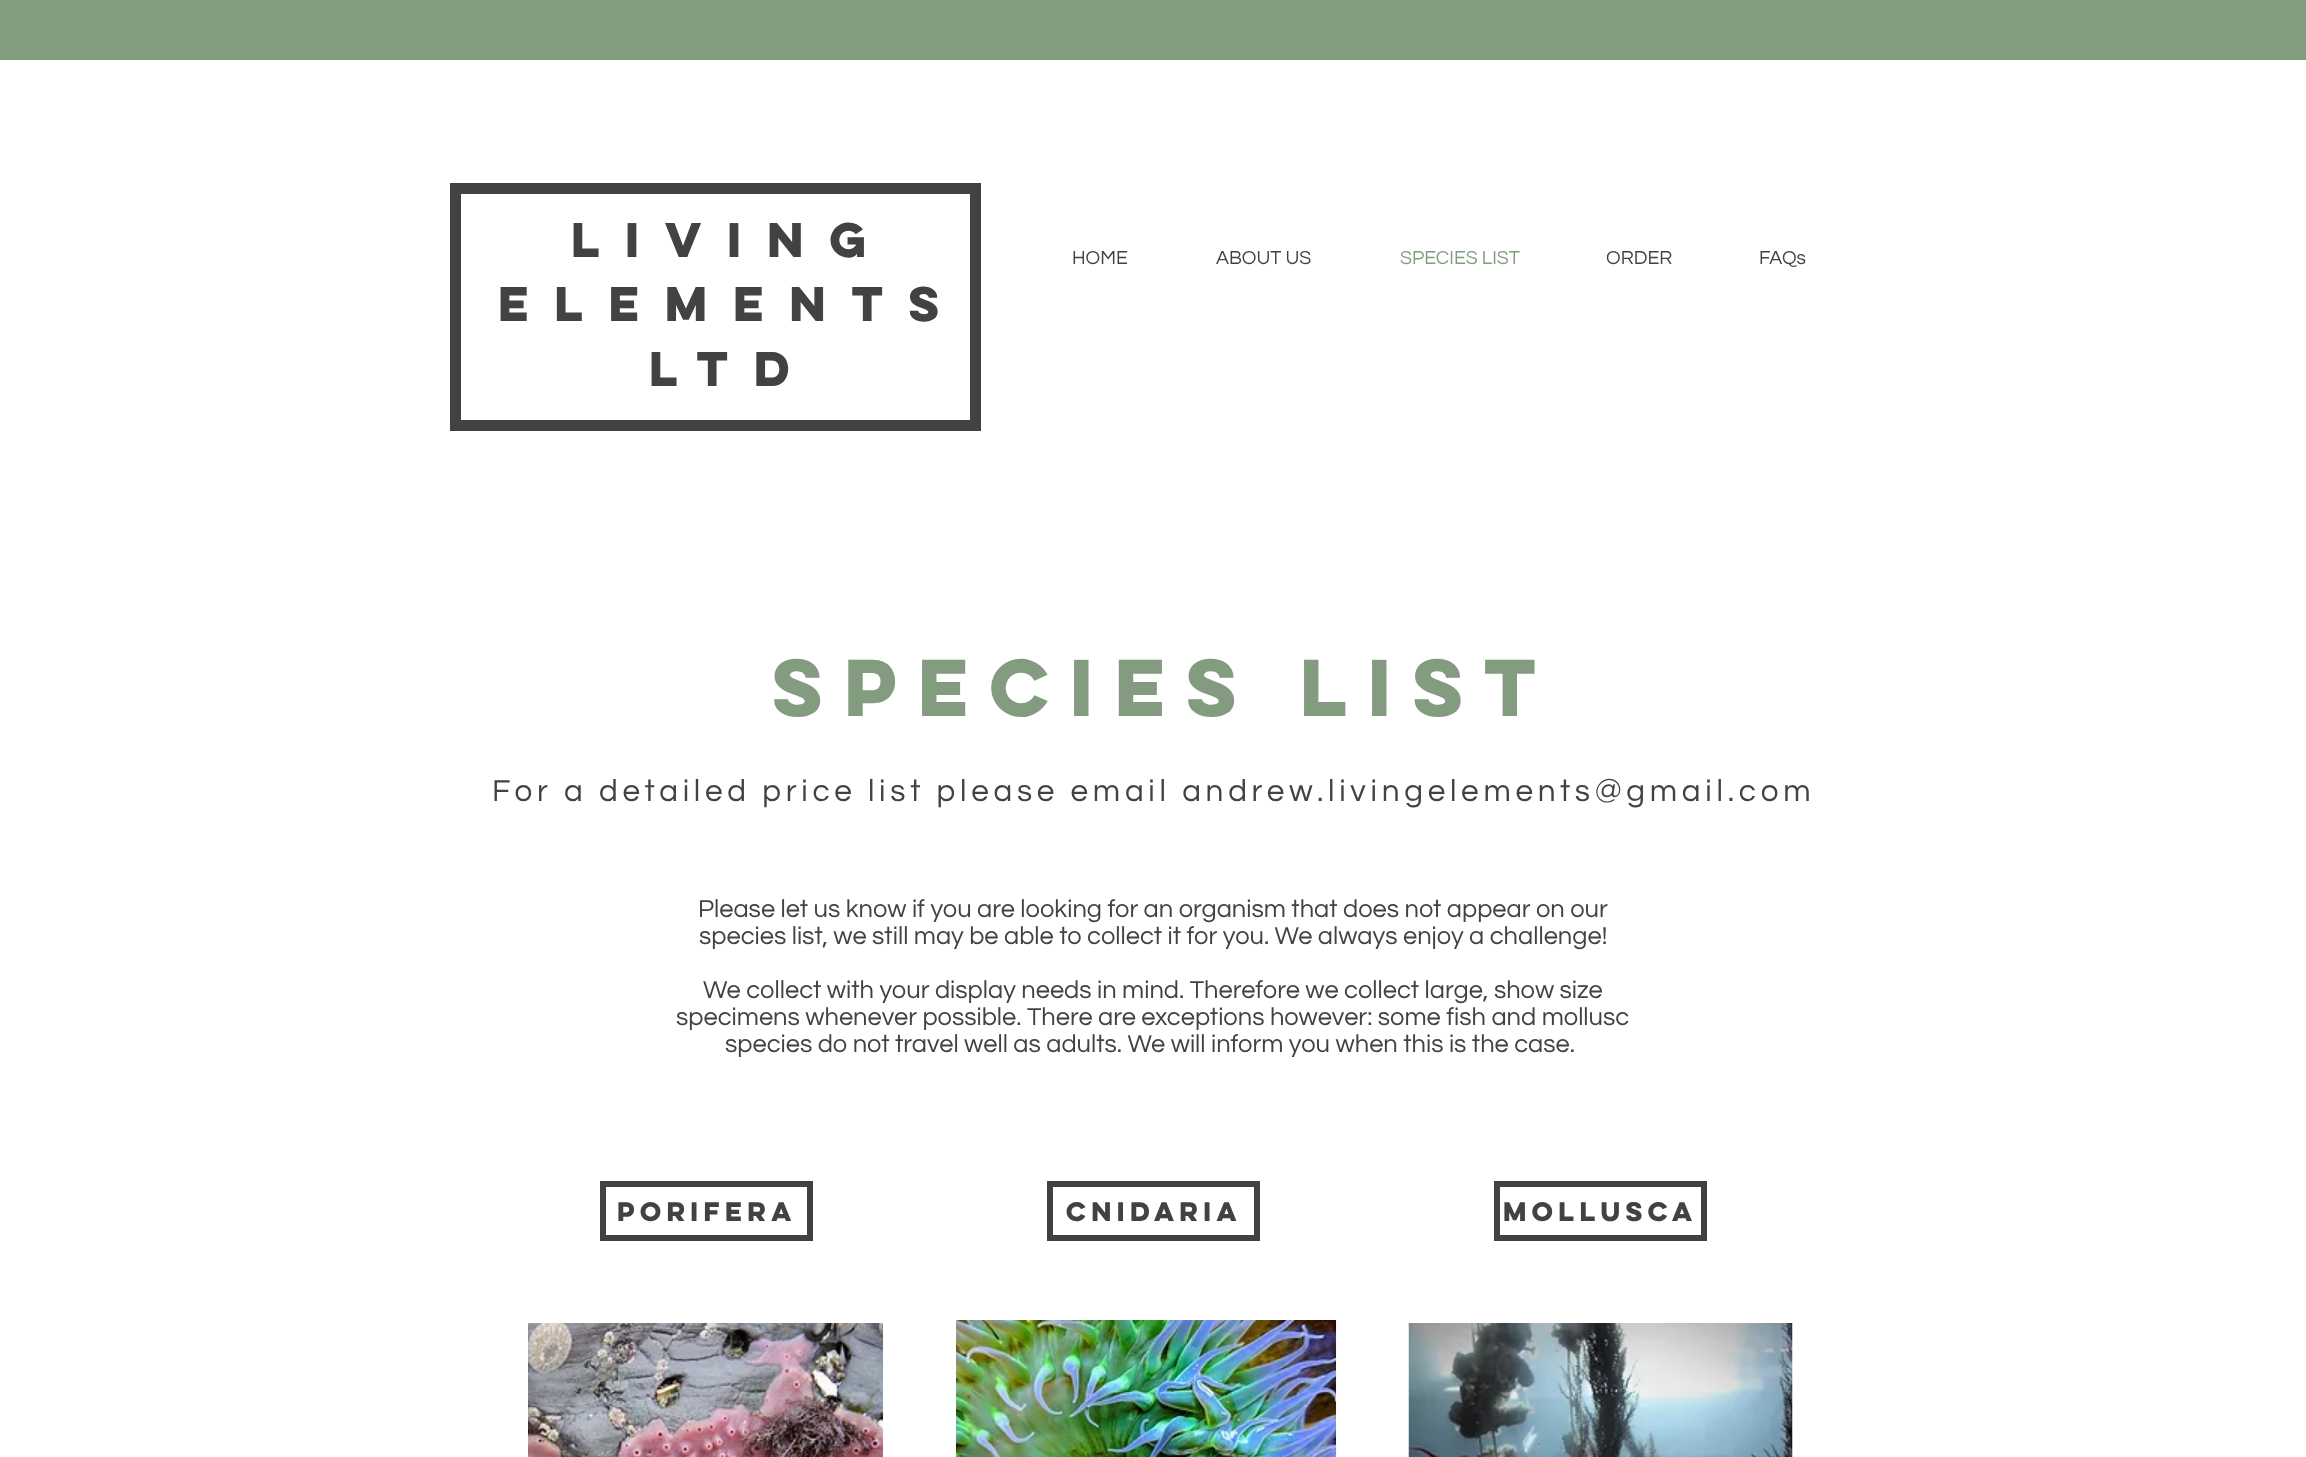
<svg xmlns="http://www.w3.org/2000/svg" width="2306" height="1457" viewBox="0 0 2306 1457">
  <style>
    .t1 { font: bold 43.5px 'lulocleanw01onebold'; letter-spacing: 16px; fill: #424242; }
    .t2 { font: 19.5px Questrial; fill: #424242; }
    .t3 { font: 19.5px Questrial; fill: #839c80; }
    .t4 { font: bold 72px 'lulocleanw01onebold'; letter-spacing: 5px; fill: #839c80; }
    .t5 { font: 31.5px Questrial; letter-spacing: 4.72px; fill: #424242; }
    .t6 { font: 25.5px Questrial; fill: #424242; }
    .t7 { font: bold 24px 'lulocleanw01onebold'; fill: #424242; }
  </style>
  <rect width="100%" height="100%" fill="#fff"/>
  <rect x="0" y="0" width="2306" height="60" fill="#839c80"/>
  <rect x="455.5" y="188.5" width="520" height="237" fill="none" stroke="#424242" stroke-width="11"/>
  <text x="571" y="257" class="t1">Living</text>
  <text x="498" y="321" class="t1">Elements</text>
  <text x="649" y="386" class="t1">Ltd</text>
  <text x="1072" y="264" class="t2">HOME</text>
  <text x="1216" y="264" class="t2">ABOUT US</text>
  <text x="1400" y="264" class="t3">SPECIES LIST</text>
  <text x="1606" y="264" class="t2">ORDER</text>
  <text x="1759" y="264" class="t2">FAQs</text>
  <text x="772" y="716" class="t4">SPECIES LIST</text>
  <text x="492" y="801" class="t5">For a detailed price list please email andrew.livingelements@gmail.com</text>
  <text x="698" y="917" class="t6">Please let us know if you are looking for an organism that does not appear on our</text>
  <text x="699" y="944" class="t6">species list, we still may be able to collect it for you. We always enjoy a challenge!</text>
  <text x="703" y="998" class="t6">We collect with your display needs in mind. Therefore we collect large, show size</text>
  <text x="676" y="1025" class="t6">specimens whenever possible. There are exceptions however: some fish and mollusc</text>
  <text x="725" y="1052" class="t6">species do not travel well as adults. We will inform you when this is the case.</text>
  <rect x="603" y="1184" width="207" height="54" fill="none" stroke="#424242" stroke-width="6"/>
  <text x="617" y="1221" class="t7">Porifera</text>
  <rect x="1050" y="1184" width="207" height="54" fill="none" stroke="#424242" stroke-width="6"/>
  <text x="1066" y="1221" class="t7">cnidaria</text>
  <rect x="1497" y="1184" width="207" height="54" fill="none" stroke="#424242" stroke-width="6"/>
  <text x="1503" y="1221" class="t7">mollusca</text>
  <image x="528" y="1323" width="356" height="134" href="images/1.png"/>
  <image x="956" y="1320" width="381" height="137" href="images/2.png"/>
  <image x="1408" y="1323" width="385" height="134" href="images/3.png"/>
</svg>
